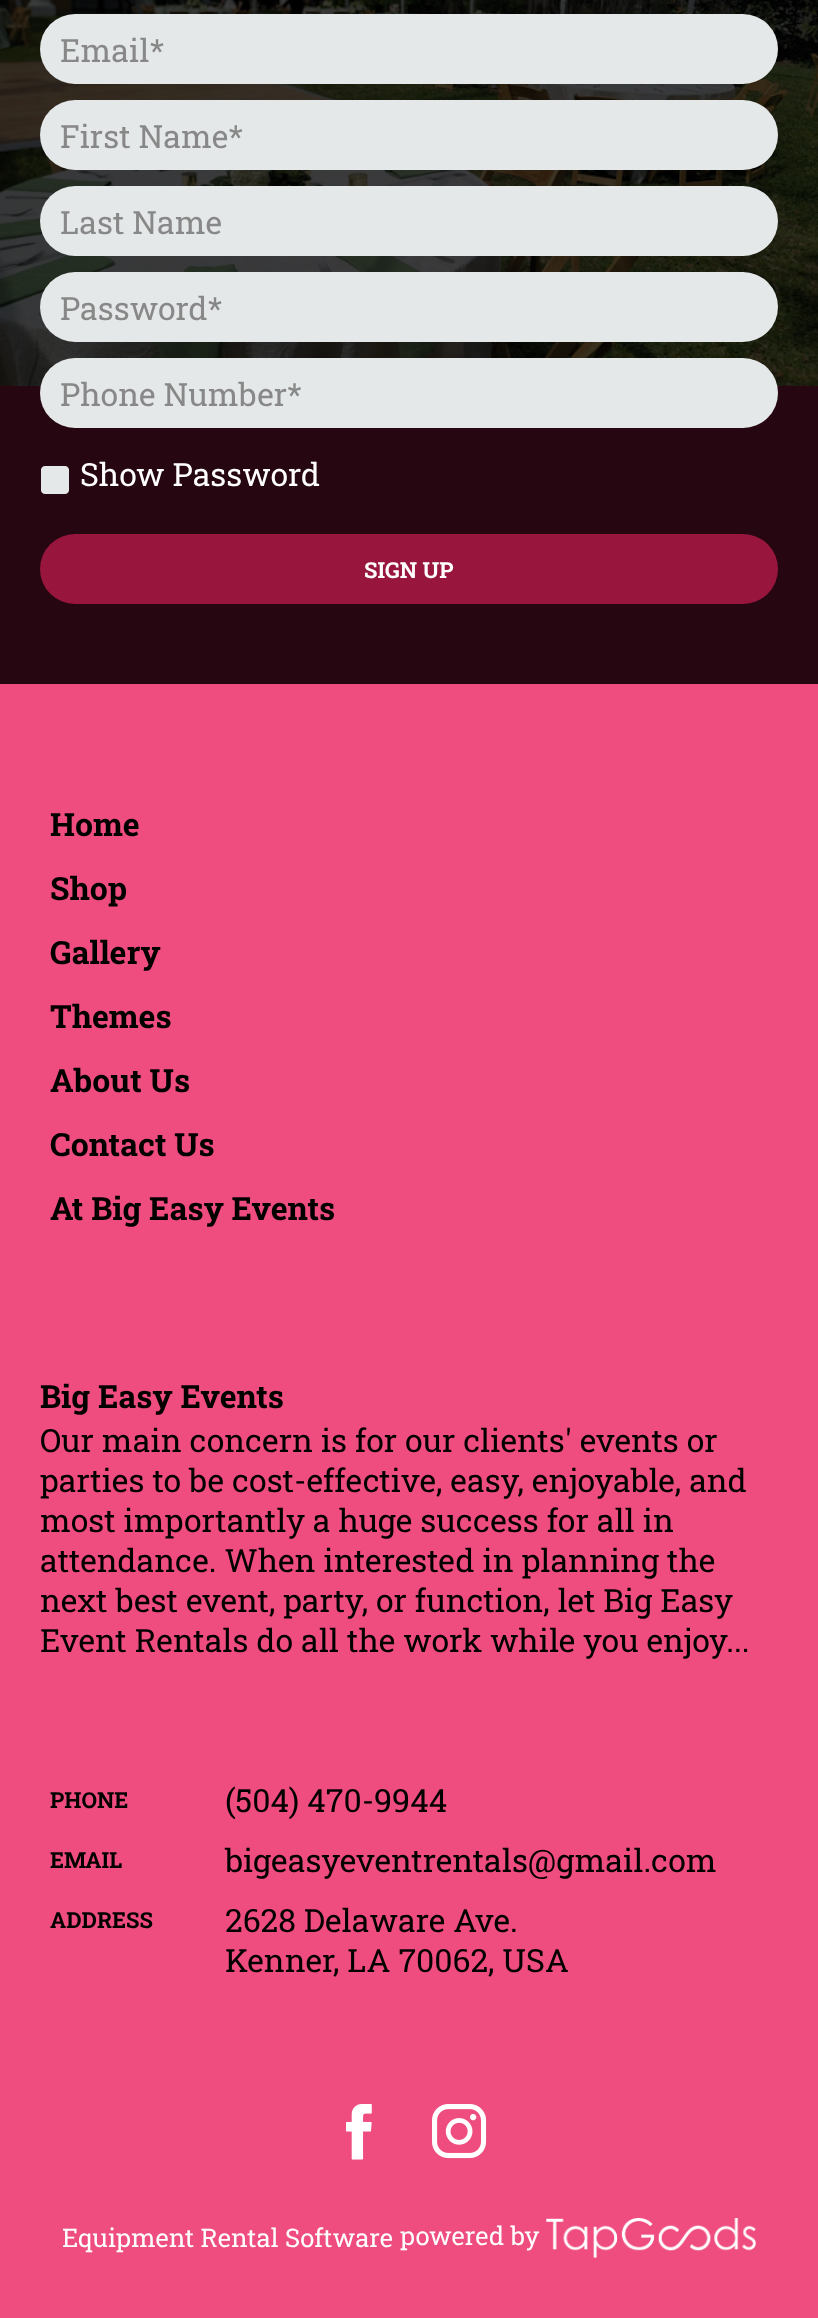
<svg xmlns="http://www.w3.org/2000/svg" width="818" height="2318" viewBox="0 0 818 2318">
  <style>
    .t1 { font: 32px Roboto Slab; fill: #888; }
    .t2 { font: 32px Roboto Slab; fill: #fff; }
    .t3 { font: bold 22px Roboto Slab; fill: #fff; }
    .t4 { font: bold 32px Roboto Slab; fill: #000; }
    .t5 { font: 32px Roboto Slab; fill: #000; }
    .t6 { font: bold 22px Roboto Slab; fill: #000; }
    .t7 { font: 25.6px Roboto Slab; fill: #fff; }
  </style>
  <rect width="100%" height="100%" fill="#ef4c7f"/>
  <rect x="0" y="386" width="818" height="298" fill="#260610"/>
  <image x="0" y="0" width="818" height="386" href="images/1.png"/>
  <rect x="40" y="14" width="738" height="70" rx="35" fill="#e5e8e9"/>
  <text x="60" y="62" class="t1">Email*</text>
  <rect x="40" y="100" width="738" height="70" rx="35" fill="#e5e8e9"/>
  <text x="60" y="148" class="t1">First Name*</text>
  <rect x="40" y="186" width="738" height="70" rx="35" fill="#e5e8e9"/>
  <text x="60" y="234" class="t1">Last Name</text>
  <rect x="40" y="272" width="738" height="70" rx="35" fill="#e5e8e9"/>
  <text x="60" y="320" class="t1">Password*</text>
  <rect x="40" y="358" width="738" height="70" rx="35" fill="#e5e8e9"/>
  <text x="60" y="406" class="t1">Phone Number*</text>
  <image x="41" y="466" width="28" height="28" href="images/2.png"/>
  <text x="80" y="486" class="t2">Show Password</text>
  <rect x="40" y="534" width="738" height="70" rx="35" fill="#98163e"/>
  <text x="364" y="578" class="t3">SIGN UP</text>
  <text x="50" y="836" class="t4">Home</text>
  <text x="50" y="900" class="t4">Shop</text>
  <text x="50" y="964" class="t4">Gallery</text>
  <text x="50" y="1028" class="t4">Themes</text>
  <text x="50" y="1092" class="t4">About Us</text>
  <text x="50" y="1156" class="t4">Contact Us</text>
  <text x="50" y="1220" class="t4">At Big Easy Events</text>
  <text x="40" y="1408" class="t4">Big Easy Events</text>
  <text x="40" y="1452" class="t5">Our main concern is for our clients' events or</text>
  <text x="40" y="1492" class="t5">parties to be cost-effective, easy, enjoyable, and</text>
  <text x="40" y="1532" class="t5">most importantly a huge success for all in</text>
  <text x="40" y="1572" class="t5">attendance. When interested in planning the</text>
  <text x="40" y="1612" class="t5">next best event, party, or function, let Big Easy</text>
  <text x="40" y="1652" class="t5">Event Rentals do all the work while you enjoy...</text>
  <text x="50" y="1808" class="t6">PHONE</text>
  <text x="225" y="1812" class="t5">(504) 470-9944</text>
  <text x="50" y="1868" class="t6">EMAIL</text>
  <text x="225" y="1872" class="t5">bigeasyeventrentals@gmail.com</text>
  <text x="50" y="1928" class="t6">ADDRESS</text>
  <text x="225" y="1932" class="t5">2628 Delaware Ave.</text>
  <text x="225" y="1972" class="t5">Kenner</text>
  <text x="333" y="1972" class="t5">, LA 70062, USA</text>
  <image x="346" y="2104" width="26" height="56" href="images/3.png"/>
  <image x="432" y="2104" width="55" height="55" href="images/4.png"/>
  <text x="62" y="2247" class="t7">Equipment Rental Software</text>
  <text x="400" y="2245" class="t7">powered by</text>
  <image x="546" y="2218" width="210" height="40" href="images/5.png"/>
</svg>
